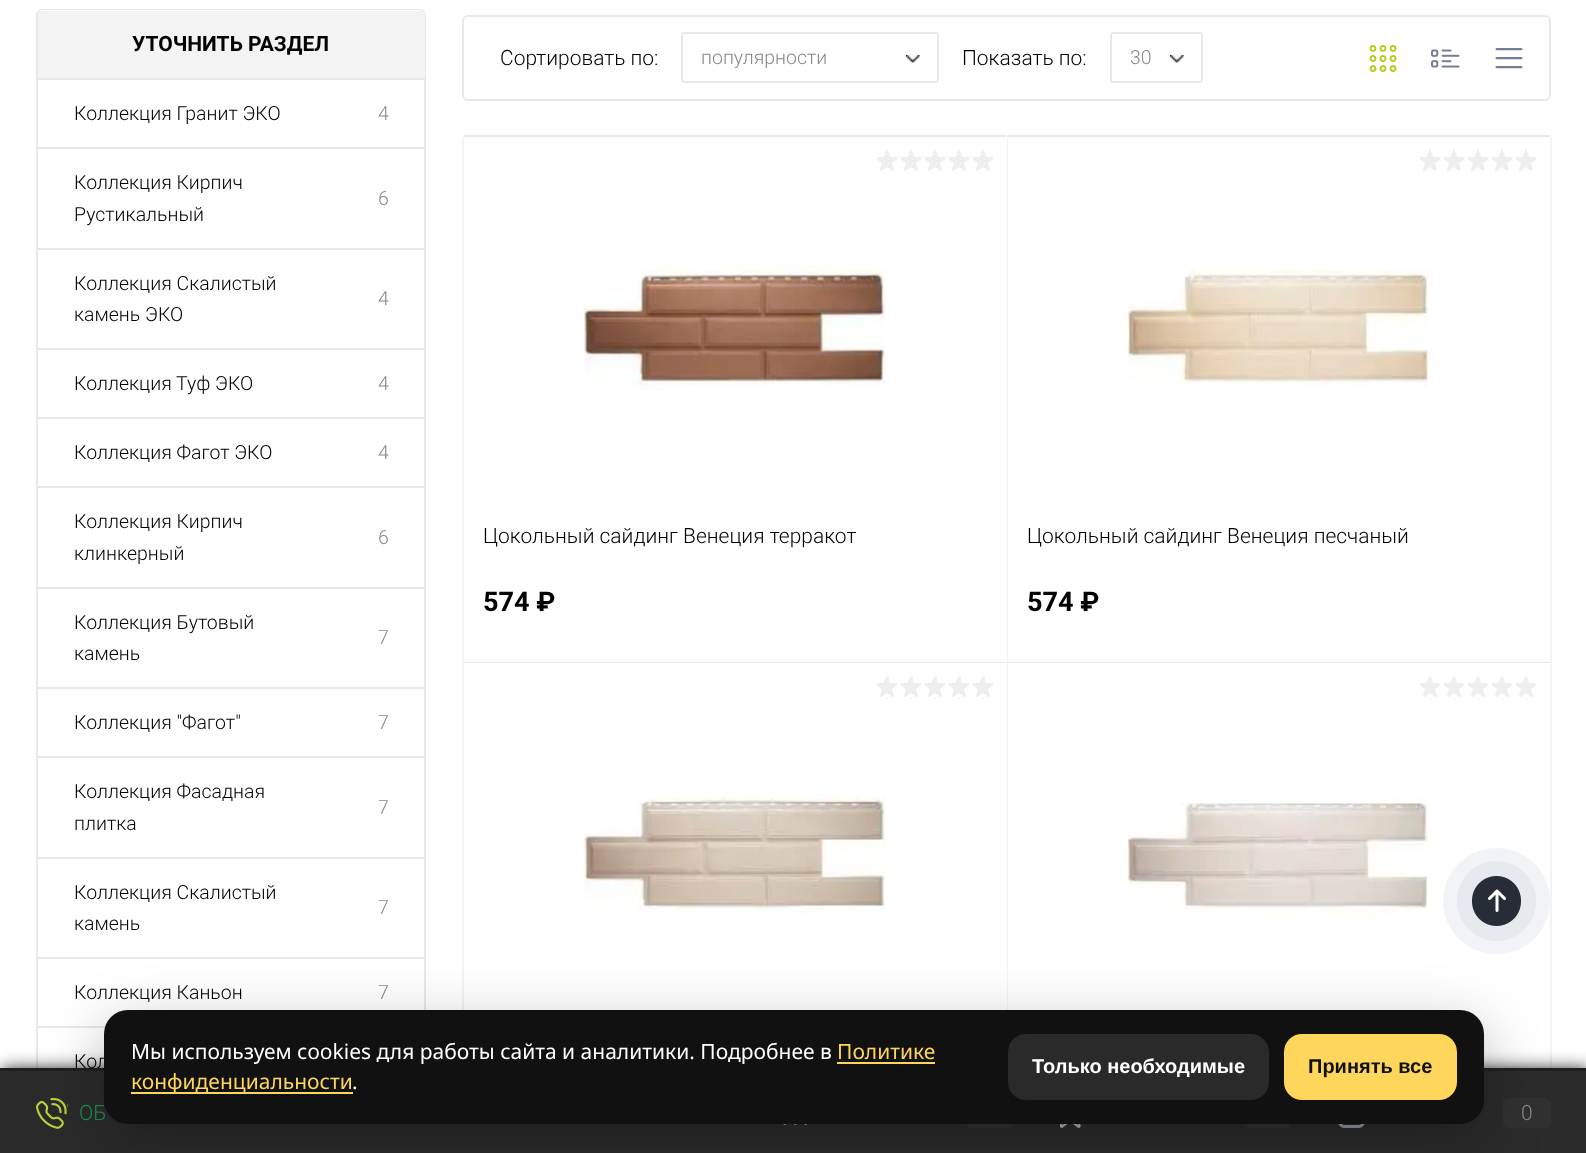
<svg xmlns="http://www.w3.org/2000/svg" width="1586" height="1153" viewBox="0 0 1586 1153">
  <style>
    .t1 { font: bold 21px Roboto; fill: #000; }
    .t2 { font: 300 19.5px Roboto; fill: #000; }
    .t3 { font: 300 19.5px Roboto; fill: #888; }
    .t4 { font: 300 21px Roboto; fill: #000; }
    .t5 { font: bold 27px Roboto; fill: #000; }
    .t6 { font: 300 21px Roboto; fill: #1e914d; }
    .t7 { font: 300 21px Roboto; fill: #888; }
    .t8 { font: 21px Noto Sans; fill: #fff; }
    .t9 { font: 21px Noto Sans; fill: #ffd65c; }
    .t10 { font: bold 20px Liberation Sans; fill: #fff; }
    .t11 { font: bold 20px Liberation Sans; fill: #111; }
  </style>
  <rect width="100%" height="100%" fill="#fff"/>
  <path d="M42 9H420C423 9 426 12 426 15V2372C426 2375 423 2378 420 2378H42C39 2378 36 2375 36 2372V15C36 12 39 9 42 9ZM42 10H420C422 10 424 13 424 15V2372C424 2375 422 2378 420 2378H42C40 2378 38 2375 38 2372V15C38 13 40 10 42 10Z" fill="#e7e8ea" fill-rule="evenodd"/>
  <rect x="38" y="11" width="387" height="67" fill="#f3f3f3"/>
  <rect x="38" y="78" width="387" height="2" fill="#e7e8ea"/>
  <text x="132" y="51" class="t1">УТОЧНИТЬ РАЗДЕЛ</text>
  <rect x="38" y="147" width="387" height="2" fill="#e7e8ea"/>
  <text x="74" y="120" class="t2">Коллекция Гранит ЭКО</text>
  <text x="378" y="120" class="t3">4</text>
  <rect x="38" y="248" width="387" height="2" fill="#e7e8ea"/>
  <text x="74" y="189" class="t2">Коллекция Кирпич</text>
  <text x="74" y="221" class="t2">Рустикальный</text>
  <text x="378" y="205" class="t3">6</text>
  <rect x="38" y="348" width="387" height="2" fill="#e7e8ea"/>
  <text x="74" y="290" class="t2">Коллекция Скалистый</text>
  <text x="74" y="321" class="t2">камень ЭКО</text>
  <text x="378" y="305" class="t3">4</text>
  <rect x="38" y="417" width="387" height="2" fill="#e7e8ea"/>
  <text x="74" y="390" class="t2">Коллекция Туф ЭКО</text>
  <text x="378" y="390" class="t3">4</text>
  <rect x="38" y="486" width="387" height="2" fill="#e7e8ea"/>
  <text x="74" y="459" class="t2">Коллекция Фагот ЭКО</text>
  <text x="378" y="459" class="t3">4</text>
  <rect x="38" y="587" width="387" height="2" fill="#e7e8ea"/>
  <text x="74" y="528" class="t2">Коллекция Кирпич</text>
  <text x="74" y="560" class="t2">клинкерный</text>
  <text x="378" y="544" class="t3">6</text>
  <rect x="38" y="687" width="387" height="2" fill="#e7e8ea"/>
  <text x="74" y="629" class="t2">Коллекция Бутовый</text>
  <text x="74" y="660" class="t2">камень</text>
  <text x="378" y="644" class="t3">7</text>
  <rect x="38" y="756" width="387" height="2" fill="#e7e8ea"/>
  <text x="74" y="729" class="t2">Коллекция "Фагот"</text>
  <text x="378" y="729" class="t3">7</text>
  <rect x="38" y="857" width="387" height="2" fill="#e7e8ea"/>
  <text x="74" y="798" class="t2">Коллекция Фасадная</text>
  <text x="74" y="830" class="t2">плитка</text>
  <text x="378" y="814" class="t3">7</text>
  <rect x="38" y="957" width="387" height="2" fill="#e7e8ea"/>
  <text x="74" y="899" class="t2">Коллекция Скалистый</text>
  <text x="74" y="930" class="t2">камень</text>
  <text x="378" y="914" class="t3">7</text>
  <rect x="38" y="1026" width="68" height="2" fill="#e7e8ea"/>
  <text x="74" y="999" class="t2">Коллекция Каньон</text>
  <text x="378" y="999" class="t3">7</text>
  <text x="74" y="1068" class="t2">Кол</text>
  <rect x="463" y="16" width="1087" height="84" rx="5" fill="none" stroke="#e7e8ea" stroke-width="2"/>
  <text x="500" y="65" class="t4">Сортировать по:</text>
  <rect x="682" y="33" width="256" height="49" rx="2" fill="none" stroke="#e7e8ea" stroke-width="2"/>
  <text x="701" y="64" class="t3">популярности</text>
  <image x="906" y="55" width="14" height="8" href="images/1.png"/>
  <text x="962" y="65" class="t4">Показать по:</text>
  <rect x="1111" y="33" width="91" height="49" rx="2" fill="none" stroke="#e7e8ea" stroke-width="2"/>
  <text x="1130" y="64" class="t3">30</text>
  <image x="1170" y="55" width="14" height="8" href="images/2.png"/>
  <image x="1369" y="45" width="28" height="27" href="images/3.png"/>
  <image x="1431" y="49" width="29" height="19" href="images/4.png"/>
  <image x="1495" y="48" width="28" height="21" href="images/5.png"/>
  <rect x="462" y="137" width="2" height="873" fill="#f3f3f3"/>
  <rect x="1007" y="137" width="1" height="873" fill="#f3f3f3"/>
  <rect x="464" y="135" width="543" height="2" fill="#e7e8ea"/>
  <image x="876" y="149" width="117" height="22" href="images/6.png"/>
  <image x="584" y="264" width="302" height="126" href="images/7.png"/>
  <text x="483" y="543" class="t4">Цокольный сайдинг Венеция терракот</text>
  <text x="483" y="611" class="t5">574 ₽</text>
  <rect x="1550" y="137" width="2" height="931" fill="#f3f3f3"/>
  <rect x="1008" y="135" width="542" height="2" fill="#e7e8ea"/>
  <image x="1419" y="149" width="117" height="22" href="images/6.png"/>
  <image x="1128" y="267" width="300" height="121" href="images/8.png"/>
  <text x="1027" y="543" class="t4">Цокольный сайдинг Венеция песчаный</text>
  <text x="1027" y="611" class="t5">574 ₽</text>
  <rect x="464" y="662" width="543" height="1" fill="#e7e8ea"/>
  <image x="876" y="676" width="117" height="23" href="images/9.png"/>
  <image x="584" y="794" width="302" height="124" href="images/10.png"/>
  <rect x="1008" y="662" width="542" height="1" fill="#e7e8ea"/>
  <image x="1419" y="676" width="117" height="23" href="images/9.png"/>
  <image x="1128" y="798" width="300" height="120" href="images/11.png"/>
  <rect x="2" y="1070" width="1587" height="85" fill="#000" filter="blur(9px)"/>
  <rect x="0" y="1071" width="1586" height="82" fill="#2b2b2b"/>
  <rect x="0" y="1068" width="1586" height="3" fill="#202020"/>
  <image x="36" y="1098" width="32" height="31" href="images/12.png"/>
  <text x="79" y="1120" class="t6">ОБ</text>
  <image x="783" y="1124" width="25" height="1" href="images/13.png"/>
  <rect x="966" y="1098" width="48" height="30" rx="6" fill="#313131"/>
  <image x="1059" y="1124" width="22" height="4" href="images/14.png"/>
  <rect x="1244" y="1098" width="48" height="30" rx="6" fill="#313131"/>
  <rect x="1503" y="1098" width="48" height="30" rx="6" fill="#313131"/>
  <text x="1521" y="1120" class="t7">0</text>
  <image x="1338" y="1124" width="27" height="4" href="images/15.png"/>
  <image x="1443" y="848" width="107" height="106" href="images/16.png"/>
  <rect x="104" y="1028" width="1380" height="114" rx="24" fill="#00000047" filter="blur(30px)"/>
  <rect x="104" y="1010" width="1380" height="114" rx="24" fill="#111"/>
  <text x="131" y="1059" class="t8">Мы используем cookies для работы сайта и аналитики. Подробнее в</text>
  <text x="837" y="1059" class="t9">Политике</text>
  <rect x="837" y="1062" width="98" height="2" fill="#ffd65c"/>
  <rect x="131" y="1092" width="222" height="2" fill="#ffd65c"/>
  <text x="131" y="1089" class="t9">конфиденциальности</text>
  <text x="352" y="1089" class="t8">.</text>
  <rect x="1008" y="1034" width="261" height="66" rx="18" fill="#2a2a2a"/>
  <text x="1032" y="1073" class="t10">Только необходимые</text>
  <rect x="1284" y="1034" width="173" height="66" rx="18" fill="#ffd65c"/>
  <text x="1308" y="1073" class="t11">Принять все</text>
</svg>
